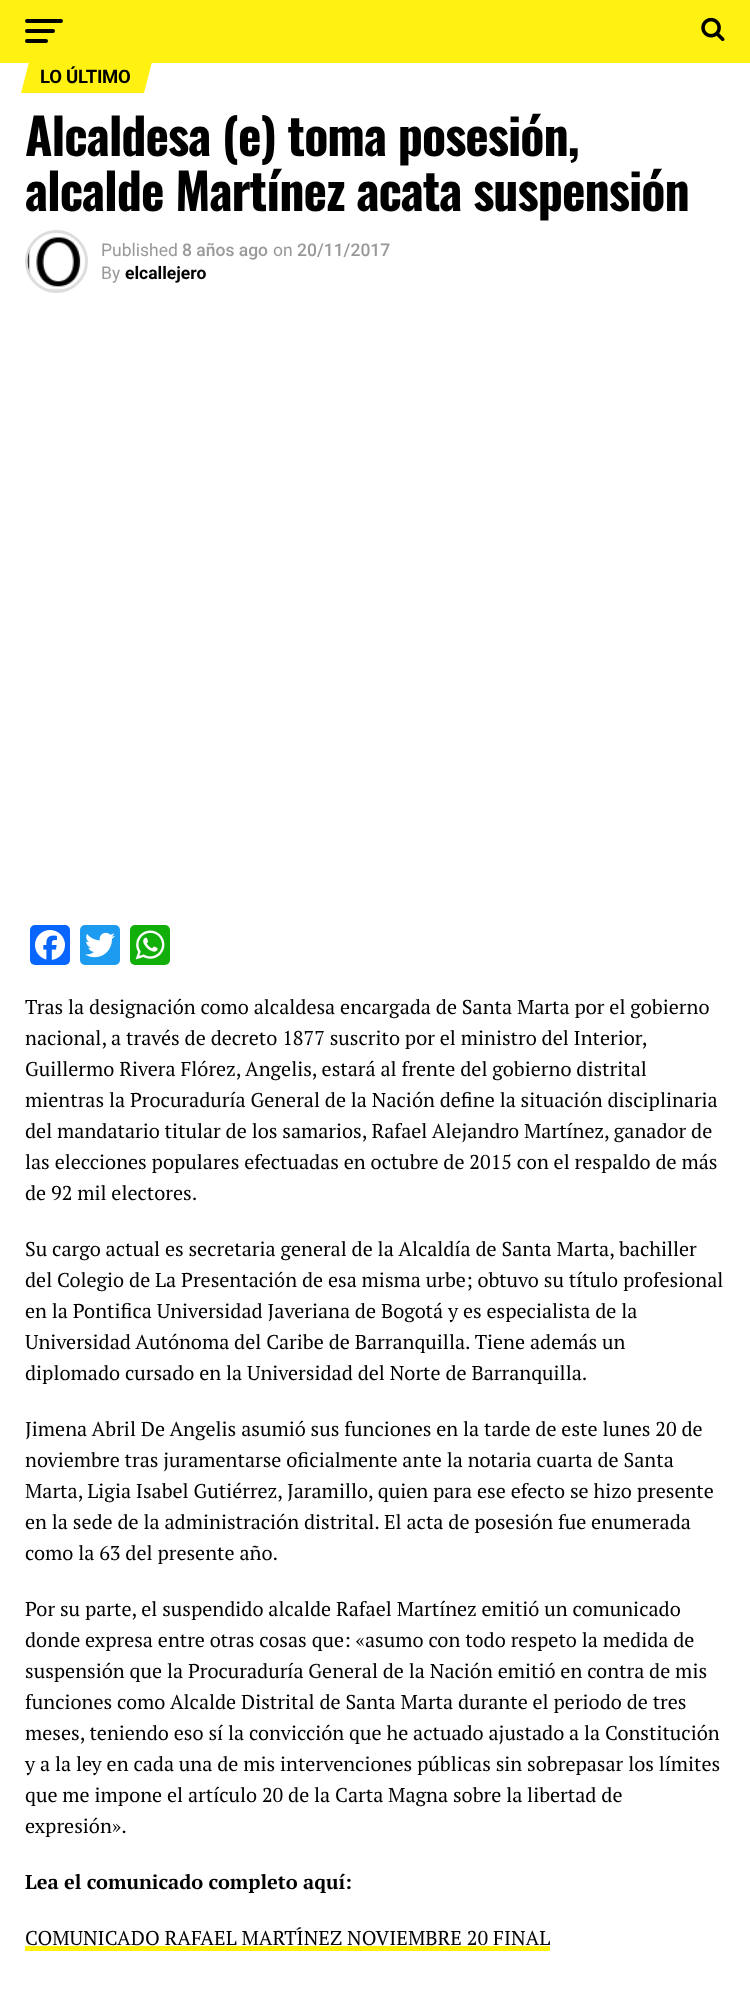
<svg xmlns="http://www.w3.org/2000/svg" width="750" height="2007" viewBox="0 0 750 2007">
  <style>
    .t1 { font: bold 18.5px Roboto; letter-spacing: -0.25px; fill: #000; }
    .t2 { font: bold 50px Oswald; letter-spacing: -1px; fill: #000; }
    .t3 { font: 17.5px Roboto; fill: #999; }
    .t4 { font: 500 17.5px Roboto; fill: #999; }
    .t5 { font: bold 17.5px Roboto; fill: #000; }
    .t6 { font: 20px PT Serif; fill: #000; }
    .t7 { font: bold 20px PT Serif; fill: #000; }
  </style>
  <rect width="100%" height="100%" fill="#fff"/>
  <path d="M29 62H152L144 93H21Z" fill="#fff213"/>
  <rect x="0" y="0" width="750" height="63" fill="#fff213"/>
  <rect x="25" y="19" width="38" height="4" rx="2" fill="#000"/>
  <rect x="25" y="29" width="30" height="4" rx="2" fill="#000"/>
  <rect x="25" y="39" width="23" height="4" rx="2" fill="#000"/>
  <image x="701" y="17" width="24" height="25" href="images/1.png"/>
  <text x="40" y="83" class="t1">LO ÚLTIMO</text>
  <text x="25" y="156" class="t2">Alcaldesa (e) toma posesión,</text>
  <text x="25" y="211" class="t2">alcalde Martínez acata suspensión</text>
  <circle cx="56.5" cy="261.5" r="30" fill="none" stroke="#ddd" stroke-width="3"/>
  <image x="27" y="236" width="54" height="54" href="images/2.png"/>
  <text x="101" y="256" class="t3">Published</text>
  <text x="182" y="256" class="t4">8 años ago</text>
  <text x="273" y="256" class="t3">on</text>
  <text x="297" y="256" class="t4">20/11/2017</text>
  <text x="101" y="279" class="t3">By</text>
  <text x="125" y="279" class="t5">elcallejero</text>
  <rect x="30" y="925" width="40" height="40" rx="5" fill="#0866ff"/>
  <image x="35" y="930" width="30" height="30" href="images/3.png"/>
  <rect x="80" y="925" width="40" height="40" rx="5" fill="#1d9bf0"/>
  <image x="85" y="932" width="30" height="26" href="images/4.png"/>
  <rect x="130" y="925" width="40" height="40" rx="5" fill="#12af0a"/>
  <image x="135" y="930" width="30" height="30" href="images/5.png"/>
  <text x="25" y="1014" class="t6">Tras la designación como alcaldesa encargada de Santa Marta por el gobierno</text>
  <text x="25" y="1045" class="t6">nacional, a través de decreto 1877 suscrito por el ministro del Interior,</text>
  <text x="25" y="1076" class="t6">Guillermo Rivera Flórez, Angelis, estará al frente del gobierno distrital</text>
  <text x="25" y="1107" class="t6">mientras la Procuraduría General de la Nación define la situación disciplinaria</text>
  <text x="25" y="1138" class="t6">del mandatario titular de los samarios, Rafael Alejandro Martínez, ganador de</text>
  <text x="25" y="1169" class="t6">las elecciones populares efectuadas en octubre de 2015 con el respaldo de más</text>
  <text x="25" y="1200" class="t6">de 92 mil electores.</text>
  <text x="25" y="1256" class="t6">Su cargo actual es secretaria general de la Alcaldía de Santa Marta, bachiller</text>
  <text x="25" y="1287" class="t6">del Colegio de La Presentación de esa misma urbe; obtuvo su título profesional</text>
  <text x="25" y="1318" class="t6">en la Pontifica Universidad Javeriana de Bogotá y es especialista de la</text>
  <text x="25" y="1349" class="t6">Universidad Autónoma del Caribe de Barranquilla. Tiene además un</text>
  <text x="25" y="1380" class="t6">diplomado cursado en la Universidad del Norte de Barranquilla.</text>
  <text x="25" y="1436" class="t6">Jimena Abril De Angelis asumió sus funciones en la tarde de este lunes 20 de</text>
  <text x="25" y="1467" class="t6">noviembre tras juramentarse oficialmente ante la notaria cuarta de Santa</text>
  <text x="25" y="1498" class="t6">Marta, Ligia Isabel Gutiérrez, Jaramillo, quien para ese efecto se hizo presente</text>
  <text x="25" y="1529" class="t6">en la sede de la administración distrital. El acta de posesión fue enumerada</text>
  <text x="25" y="1560" class="t6">como la 63 del presente año.</text>
  <text x="25" y="1616" class="t6">Por su parte, el suspendido alcalde Rafael Martínez emitió un comunicado</text>
  <text x="25" y="1647" class="t6">donde expresa entre otras cosas que: «asumo con todo respeto la medida de</text>
  <text x="25" y="1678" class="t6">suspensión que la Procuraduría General de la Nación emitió en contra de mis</text>
  <text x="25" y="1709" class="t6">funciones como Alcalde Distrital de Santa Marta durante el periodo de tres</text>
  <text x="25" y="1740" class="t6">meses, teniendo eso sí la convicción que he actuado ajustado a la Constitución</text>
  <text x="25" y="1771" class="t6">y a la ley en cada una de mis intervenciones públicas sin sobrepasar los límites</text>
  <text x="25" y="1802" class="t6">que me impone el artículo 20 de la Carta Magna sobre la libertad de</text>
  <text x="25" y="1833" class="t6">expresión».</text>
  <text x="25" y="1889" class="t7">Lea el comunicado completo aquí:</text>
  <text x="25" y="1945" class="t6">COMUNICADO RAFAEL MARTÍNEZ NOVIEMBRE 20 FINAL</text>
  <rect x="25" y="1946" width="525" height="5" fill="#fff213"/>
</svg>
